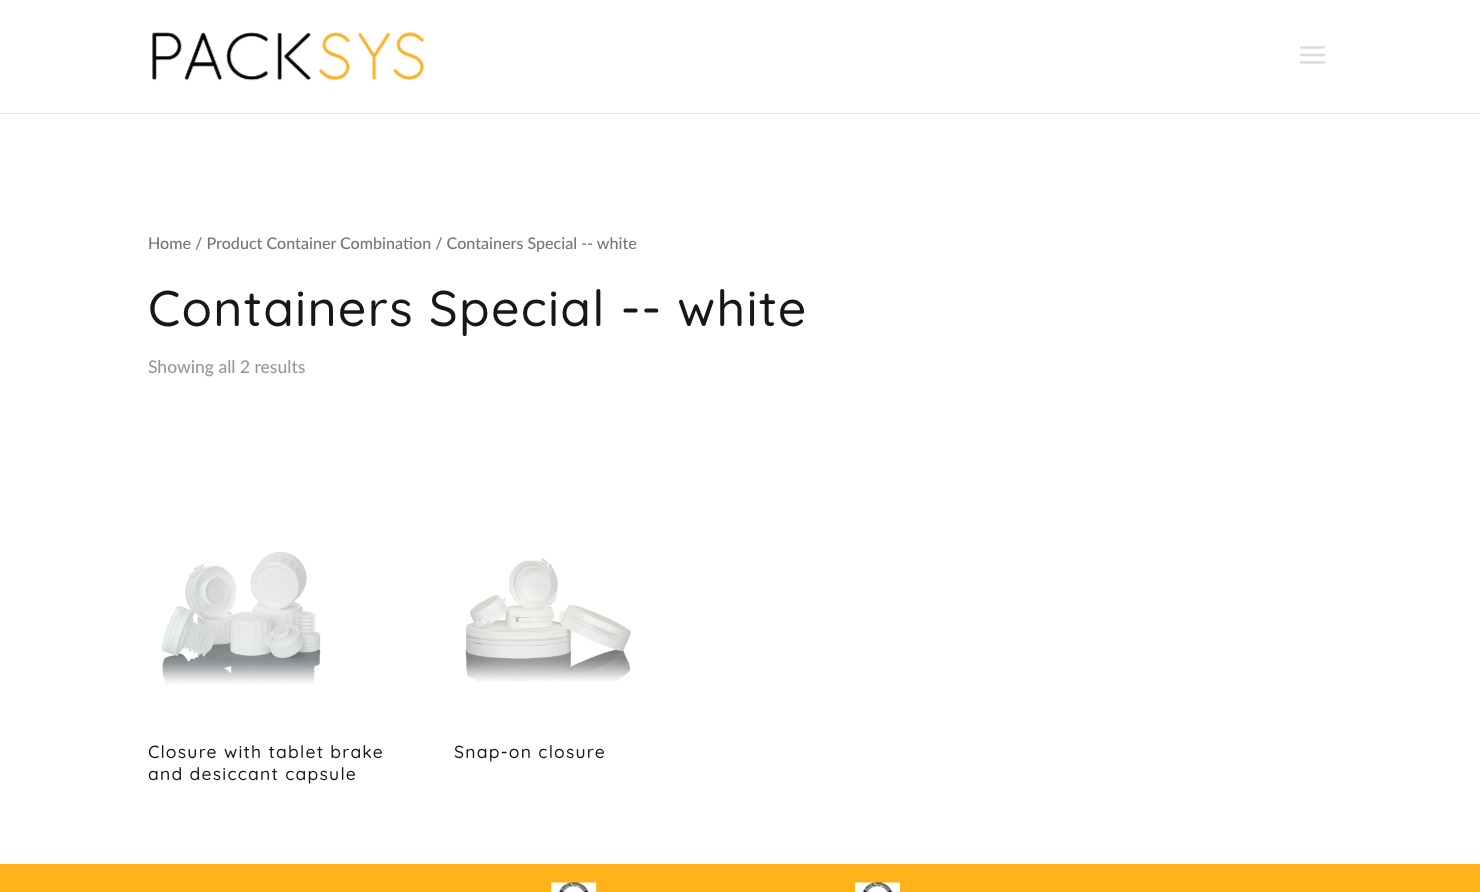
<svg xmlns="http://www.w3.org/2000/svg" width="1480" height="892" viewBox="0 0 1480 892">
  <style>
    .t1 { font: 500 16.1px Lato; fill: #767676; }
    .t2 { font: 500 50px Quicksand; letter-spacing: 1.25px; fill: #181716; }
    .t3 { font: 500 17.5px Lato; fill: #999; }
    .t4 { font: 500 17.5px Quicksand; letter-spacing: 1.25px; fill: #181716; }
  </style>
  <rect width="100%" height="100%" fill="#fff"/>
  <rect x="0" y="113" width="1480" height="1" fill="#e6e6e6"/>
  <image x="152" y="32" width="273" height="49" href="images/1.png"/>
  <image x="1300" y="46" width="25" height="18" href="images/2.png"/>
  <text x="148" y="249" class="t1">Home / Product Container Combination / Containers Special -- white</text>
  <text x="148" y="326" class="t2">Containers Special -- white</text>
  <text x="148" y="373" class="t3">Showing all 2 results</text>
  <image x="161" y="552" width="160" height="133" href="images/3.png"/>
  <text x="148" y="758" class="t4">Closure with tablet brake</text>
  <text x="148" y="780" class="t4">and desiccant capsule</text>
  <image x="465" y="558" width="166" height="124" href="images/4.png"/>
  <text x="454" y="758" class="t4">Snap-on closure</text>
  <rect x="0" y="864" width="1480" height="28" fill="#ffb219"/>
  <image x="551" y="882" width="46" height="10" href="images/5.png"/>
  <image x="855" y="882" width="45" height="10" href="images/6.png"/>
</svg>
